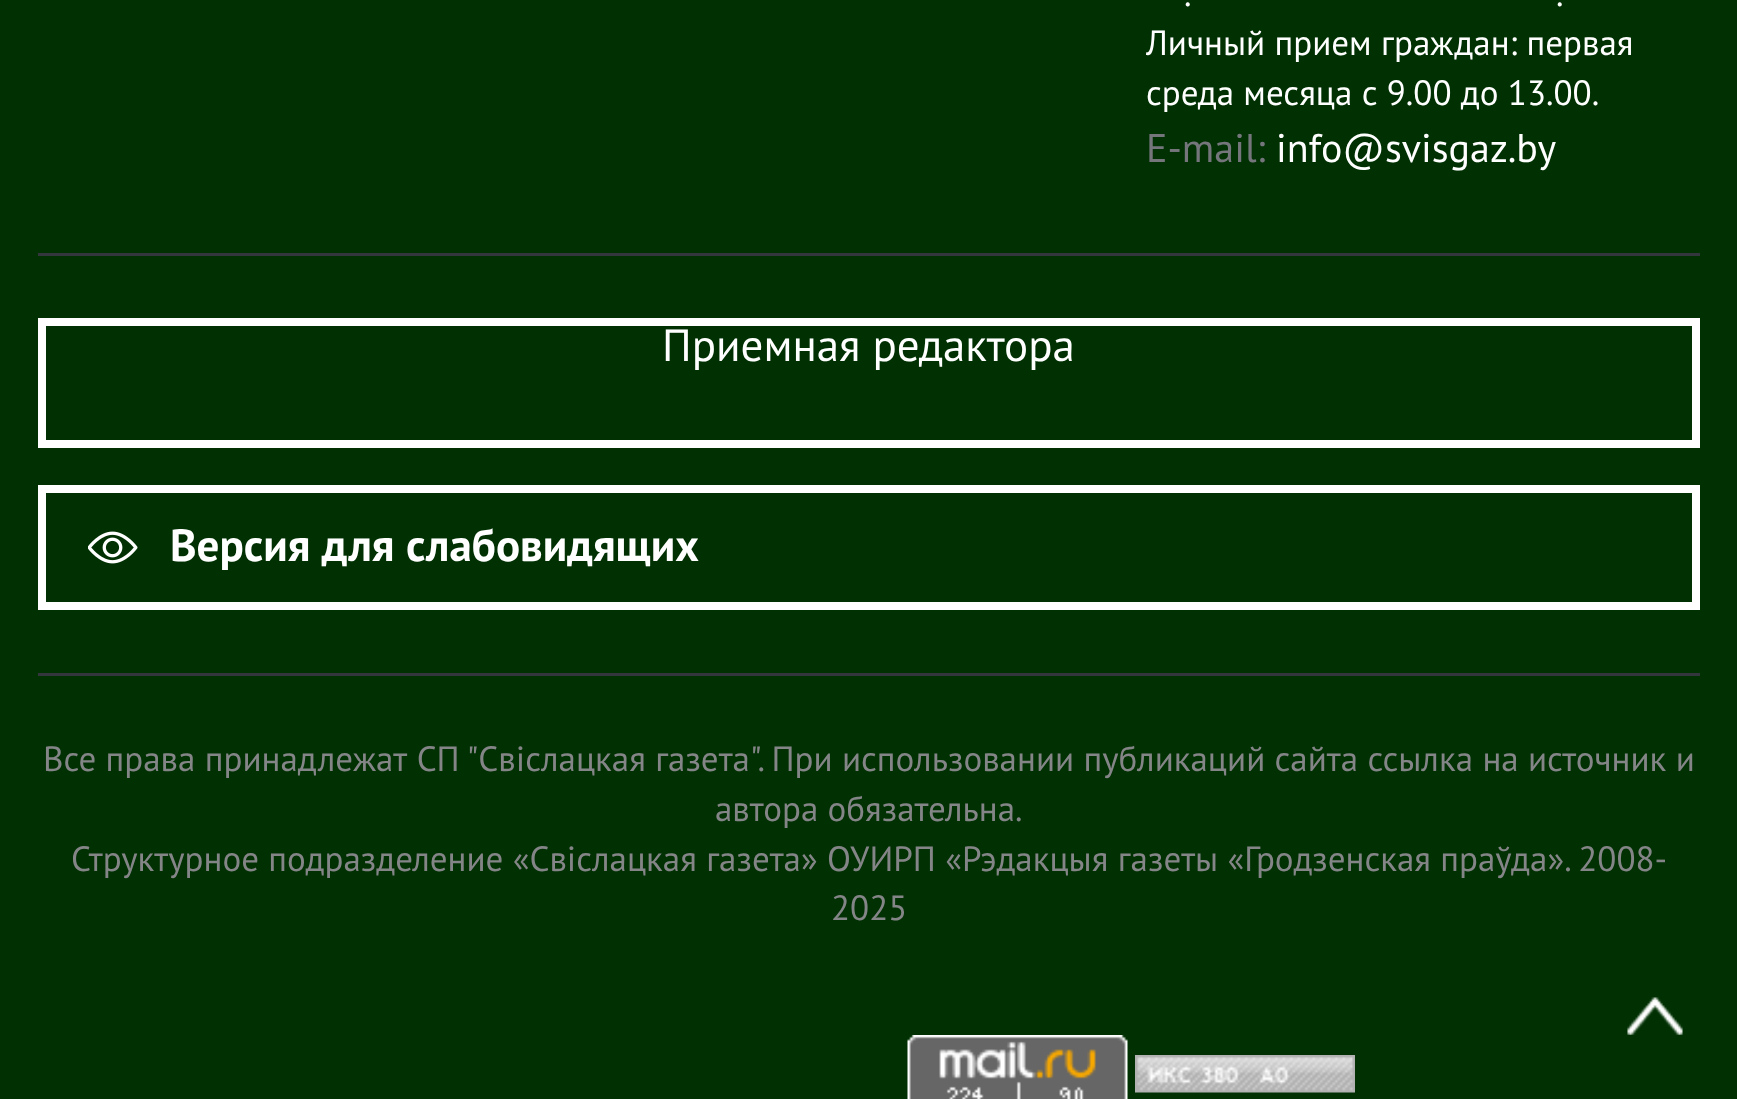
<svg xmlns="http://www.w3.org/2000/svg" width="1737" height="1099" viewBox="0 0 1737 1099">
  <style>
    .t1 { font: 35px PT Sans; fill: #fff; }
    .t2 { font: 40px PT Sans; fill: #74767c; }
    .t3 { font: 40px PT Sans; fill: #fff; }
    .t4 { font: 45px PT Sans; fill: #fff; }
    .t5 { font: bold 45px PT Sans; fill: #fff; }
    .t6 { font: 35px PT Sans; fill: #848587; }
  </style>
  <rect width="100%" height="100%" fill="#013003"/>
  <rect x="38" y="673" width="1662" height="3" fill="#34363d"/>
  <text x="1184" y="6" class="t1">.</text>
  <text x="1556" y="6" class="t1">.</text>
  <text x="1146" y="55" class="t1">Личный прием граждан: первая</text>
  <text x="1146" y="105" class="t1">среда месяца с 9.00 до 13.00.</text>
  <text x="1146" y="162" class="t2">E-mail:</text>
  <text x="1276" y="162" class="t3">info@svisgaz.by</text>
  <rect x="38" y="253" width="1662" height="3" fill="#34363d"/>
  <rect x="42" y="322" width="1654" height="122" fill="none" stroke="#fff" stroke-width="8"/>
  <text x="662" y="361" class="t4">Приемная редактора</text>
  <rect x="42" y="489" width="1654" height="117" fill="none" stroke="#fff" stroke-width="8"/>
  <image x="88" y="531" width="50" height="33" href="images/1.png"/>
  <text x="170" y="561" class="t5">Версия для слабовидящих</text>
  <text x="43" y="771" class="t6">Все права принадлежат СП "Свіслацкая газета". При использовании публикаций сайта ссылка на источник и</text>
  <text x="715" y="821" class="t6">автора обязательна.</text>
  <text x="71" y="871" class="t6">Структурное подразделение «Свіслацкая газета» ОУИРП «Рэдакцыя газеты «Гродзенская праўда». 2008-</text>
  <text x="831" y="920" class="t6">2025</text>
  <image x="907" y="1035" width="221" height="64" href="images/2.png"/>
  <image x="1135" y="1055" width="220" height="38" href="images/3.png"/>
  <image x="1627" y="997" width="56" height="38" href="images/4.png"/>
</svg>
